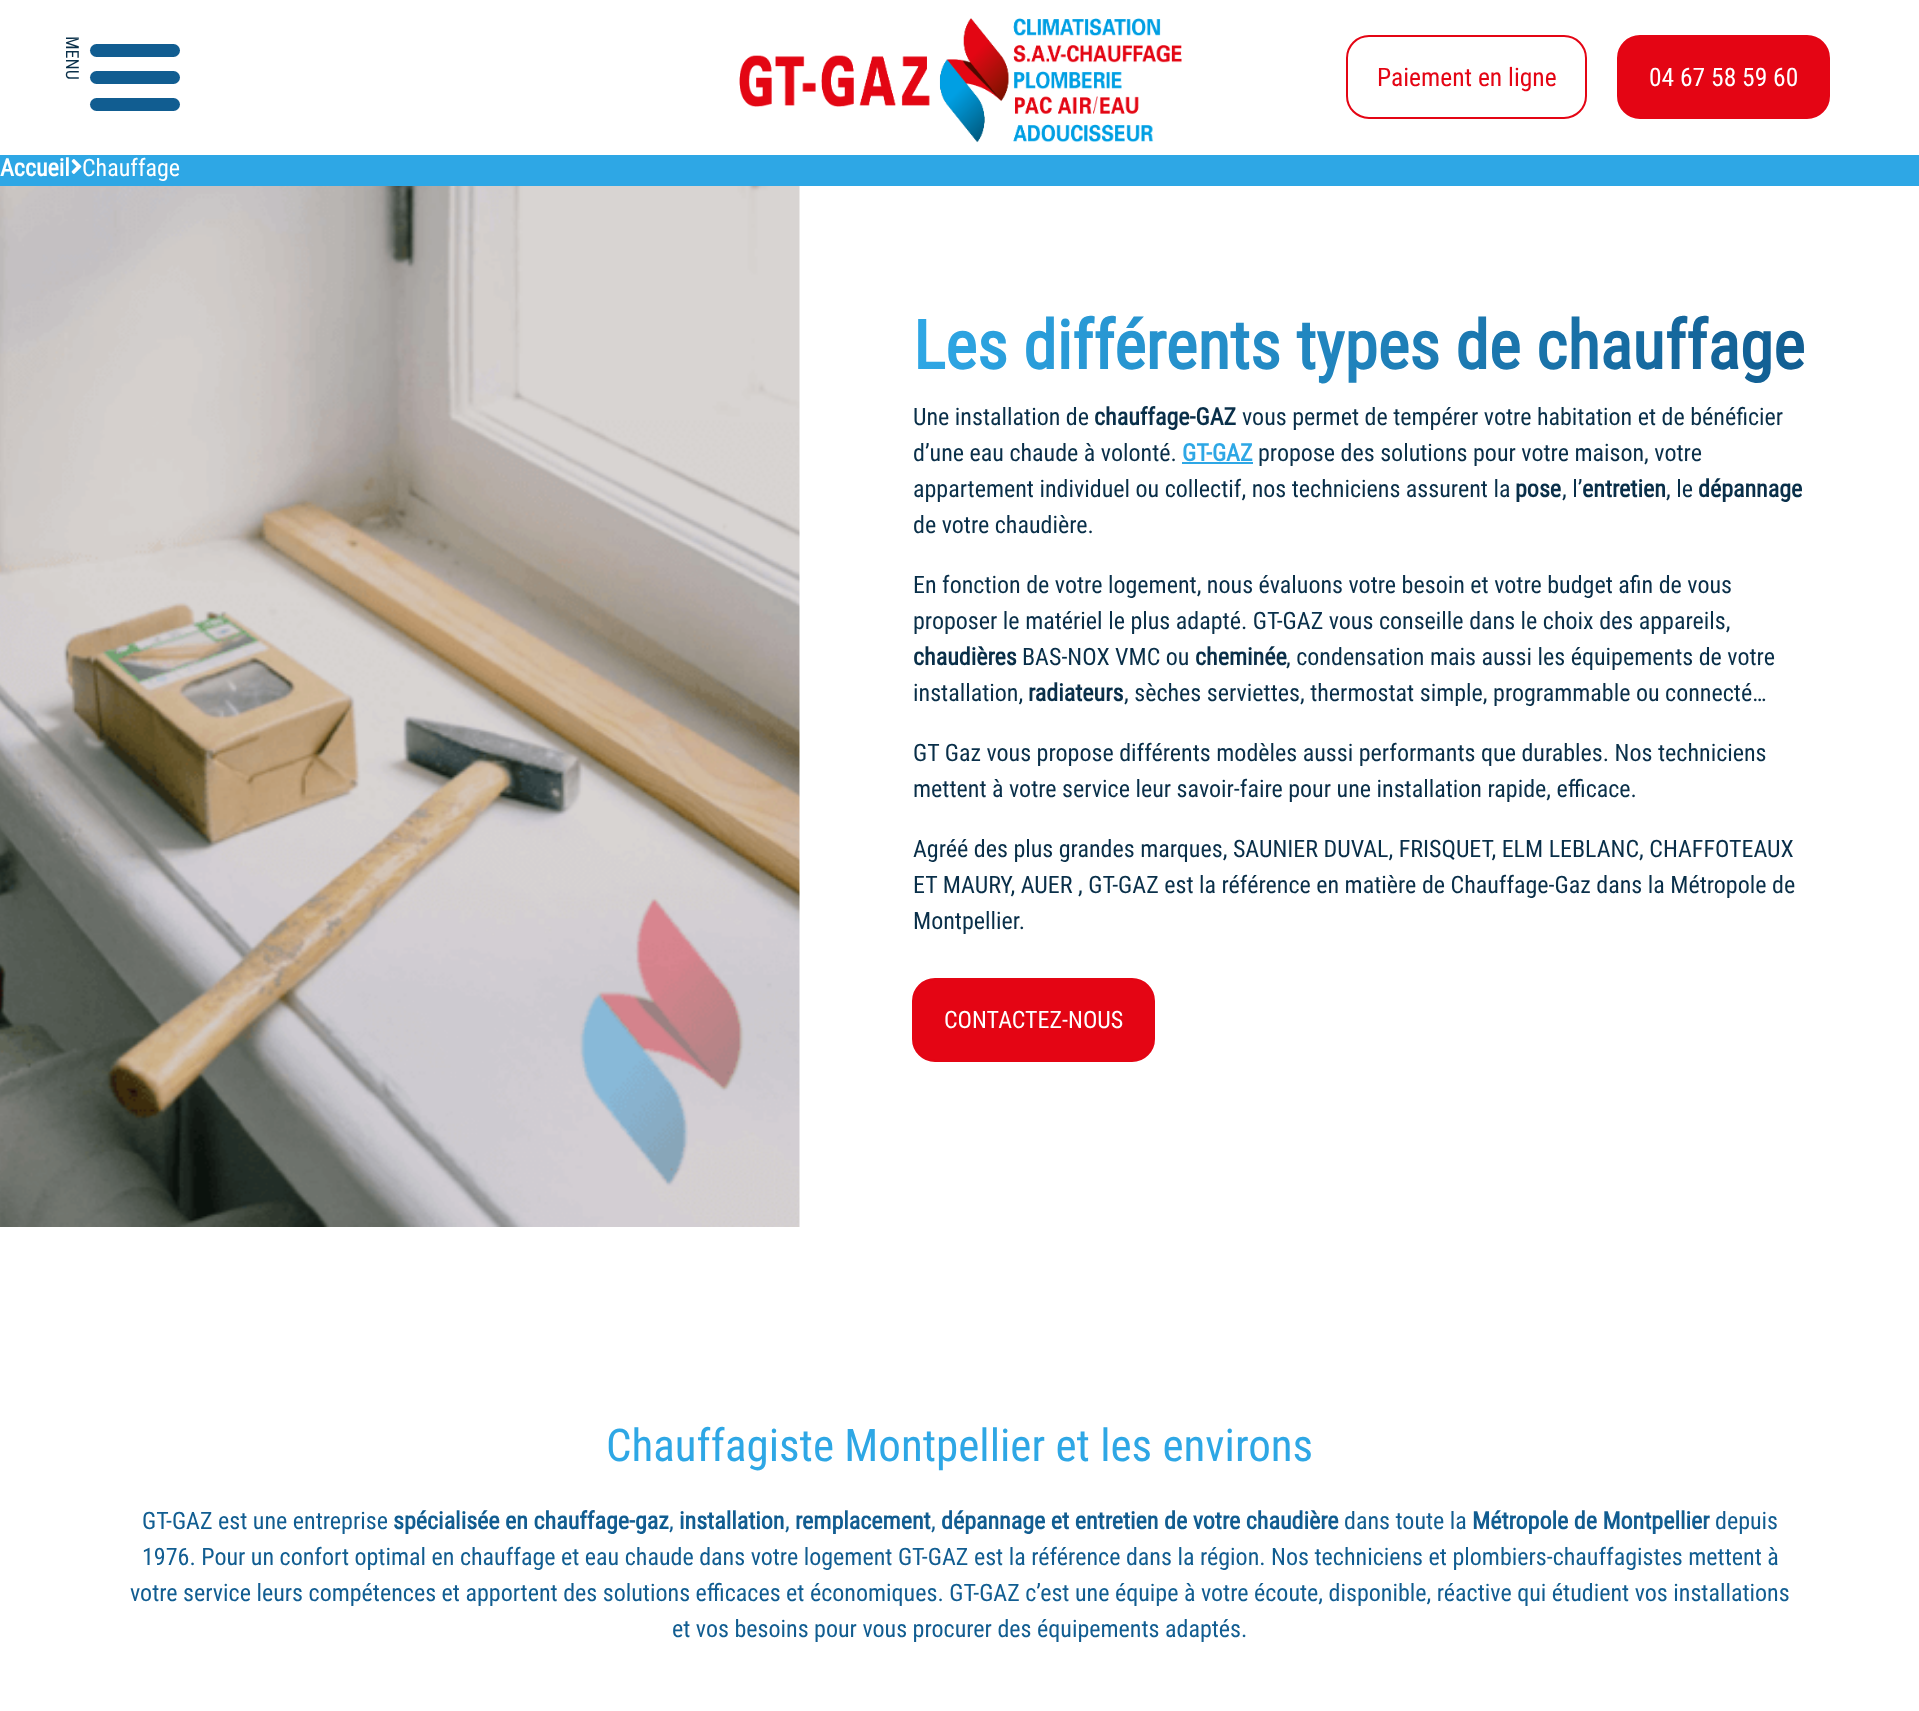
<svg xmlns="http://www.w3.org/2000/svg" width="1919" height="1711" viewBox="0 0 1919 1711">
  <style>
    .t1 { font: 18px Roboto Condensed; fill: #092f49; }
    .t2 { font: 25.5px Roboto Condensed; fill: #e40514; }
    .t3 { font: 25.5px Roboto Condensed; fill: #fff; }
    .t4 { font: bold 24px Roboto Condensed; fill: #fff; }
    .t5 { font: 24px Roboto Condensed; fill: #fff; }
    .t6 { font: bold 67.5px Roboto Condensed; fill: url(#g1); }
    .t7 { font: 24px Roboto Condensed; fill: #092f49; }
    .t8 { font: bold 24px Roboto Condensed; fill: #092f49; }
    .t9 { font: bold 24px Roboto Condensed; fill: #2ea7e5; }
    .t10 { font: 45px Roboto Condensed; fill: #2ea7e5; }
    .t11 { font: 24px Roboto Condensed; fill: #115d91; }
    .t12 { font: bold 24px Roboto Condensed; fill: #115d91; }
  </style>
  <defs>
    <linearGradient id="g1" gradientUnits="userSpaceOnUse" x1="913" y1="347" x2="1808" y2="346"><stop offset="0" stop-color="#2ea7e5"/><stop offset="1" stop-color="#115d91"/></linearGradient>
  </defs>
  <rect width="100%" height="100%" fill="#fff"/>
  <text x="66" y="36" transform="rotate(90 66 36)" class="t1">MENU</text>
  <rect x="90" y="44" width="90" height="13" rx="6.5" fill="#115d91"/>
  <rect x="90" y="71" width="90" height="13" rx="6.5" fill="#115d91"/>
  <rect x="90" y="98" width="90" height="13" rx="6.5" fill="#115d91"/>
  <image x="739" y="18" width="443" height="125" href="images/1.png"/>
  <rect x="1347" y="36" width="239" height="82" rx="22" fill="none" stroke="#e40514" stroke-width="2"/>
  <text x="1377" y="86" class="t2">Paiement en ligne</text>
  <rect x="1618" y="36" width="211" height="82" rx="22" fill="#e40514" stroke="#e40514" stroke-width="2"/>
  <text x="1649" y="86" class="t3">04 67 58 59 60</text>
  <rect x="0" y="155" width="1919" height="31" fill="#2ea7e5"/>
  <text x="0" y="176" class="t4">Accueil</text>
  <image x="71" y="159" width="11" height="15" href="images/2.png"/>
  <text x="82" y="176" class="t5">Chauffage</text>
  <image x="0" y="186" width="800" height="1041" href="images/3.png"/>
  <text x="913" y="369" class="t6">Les différents types de chauffage</text>
  <text x="913" y="425" class="t7">Une installation de</text>
  <text x="1094" y="425" class="t8">chauffage-GAZ</text>
  <text x="1242" y="425" class="t7">vous permet de tempérer votre habitation et de bénéficier</text>
  <text x="913" y="461" class="t7">d’une eau chaude à volonté.</text>
  <text x="1182" y="461" class="t9">GT-GAZ</text>
  <rect x="1182" y="462" width="71" height="2" fill="#2ea7e5"/>
  <text x="1258" y="461" class="t7">propose des solutions pour votre maison, votre</text>
  <text x="913" y="497" class="t7">appartement individuel ou collectif, nos techniciens assurent la</text>
  <text x="1515" y="497" class="t8">pose</text>
  <text x="1562" y="497" class="t7">, l’</text>
  <text x="1582" y="497" class="t8">entretien</text>
  <text x="1666" y="497" class="t7">, le</text>
  <text x="1698" y="497" class="t8">dépannage</text>
  <text x="913" y="533" class="t7">de votre chaudière.</text>
  <text x="913" y="593" class="t7">En fonction de votre logement, nous évaluons votre besoin et votre budget afin de vous</text>
  <text x="913" y="629" class="t7">proposer le matériel le plus adapté. GT-GAZ vous conseille dans le choix des appareils,</text>
  <text x="913" y="665" class="t8">chaudières</text>
  <text x="1022" y="665" class="t7">BAS-NOX VMC ou</text>
  <text x="1195" y="665" class="t8">cheminée</text>
  <text x="1286" y="665" class="t7">, condensation mais aussi les équipements de votre</text>
  <text x="913" y="701" class="t7">installation,</text>
  <text x="1028" y="701" class="t8">radiateurs</text>
  <text x="1124" y="701" class="t7">, sèches serviettes, thermostat simple, programmable ou connecté…</text>
  <text x="913" y="761" class="t7">GT Gaz vous propose différents modèles aussi performants que durables. Nos techniciens</text>
  <text x="913" y="797" class="t7">mettent à votre service leur savoir-faire pour une installation rapide, efficace.</text>
  <text x="913" y="857" class="t7">Agréé des plus grandes marques, SAUNIER DUVAL, FRISQUET, ELM LEBLANC, CHAFFOTEAUX</text>
  <text x="913" y="893" class="t7">ET MAURY, AUER , GT-GAZ est la référence en matière de Chauffage-Gaz dans la Métropole de</text>
  <text x="913" y="929" class="t7">Montpellier.</text>
  <rect x="913" y="979" width="241" height="82" rx="22" fill="#e40514" stroke="#e40514" stroke-width="2"/>
  <text x="944" y="1028" class="t5">CONTACTEZ-NOUS</text>
  <text x="606" y="1461" class="t10">Chauffagiste Montpellier et les environs</text>
  <text x="142" y="1529" class="t11">GT-GAZ est une entreprise</text>
  <text x="393" y="1529" class="t12">spécialisée en chauffage-gaz</text>
  <text x="669" y="1529" class="t11">,</text>
  <text x="679" y="1529" class="t12">installation</text>
  <text x="785" y="1529" class="t11">,</text>
  <text x="795" y="1529" class="t12">remplacement</text>
  <text x="931" y="1529" class="t11">,</text>
  <text x="941" y="1529" class="t12">dépannage et entretien de votre chaudière</text>
  <text x="1344" y="1529" class="t11">dans toute la</text>
  <text x="1472" y="1529" class="t12">Métropole de Montpellier</text>
  <text x="1715" y="1529" class="t11">depuis</text>
  <text x="142" y="1565" class="t11">1976. Pour un confort optimal en chauffage et eau chaude dans votre logement GT-GAZ est la référence dans la région. Nos techniciens et plombiers-chauffagistes mettent à</text>
  <text x="130" y="1601" class="t11">votre service leurs compétences et apportent des solutions efficaces et économiques. GT-GAZ c’est une équipe à votre écoute, disponible, réactive qui étudient vos installations</text>
  <text x="672" y="1637" class="t11">et vos besoins pour vous procurer des équipements adaptés.</text>
</svg>
